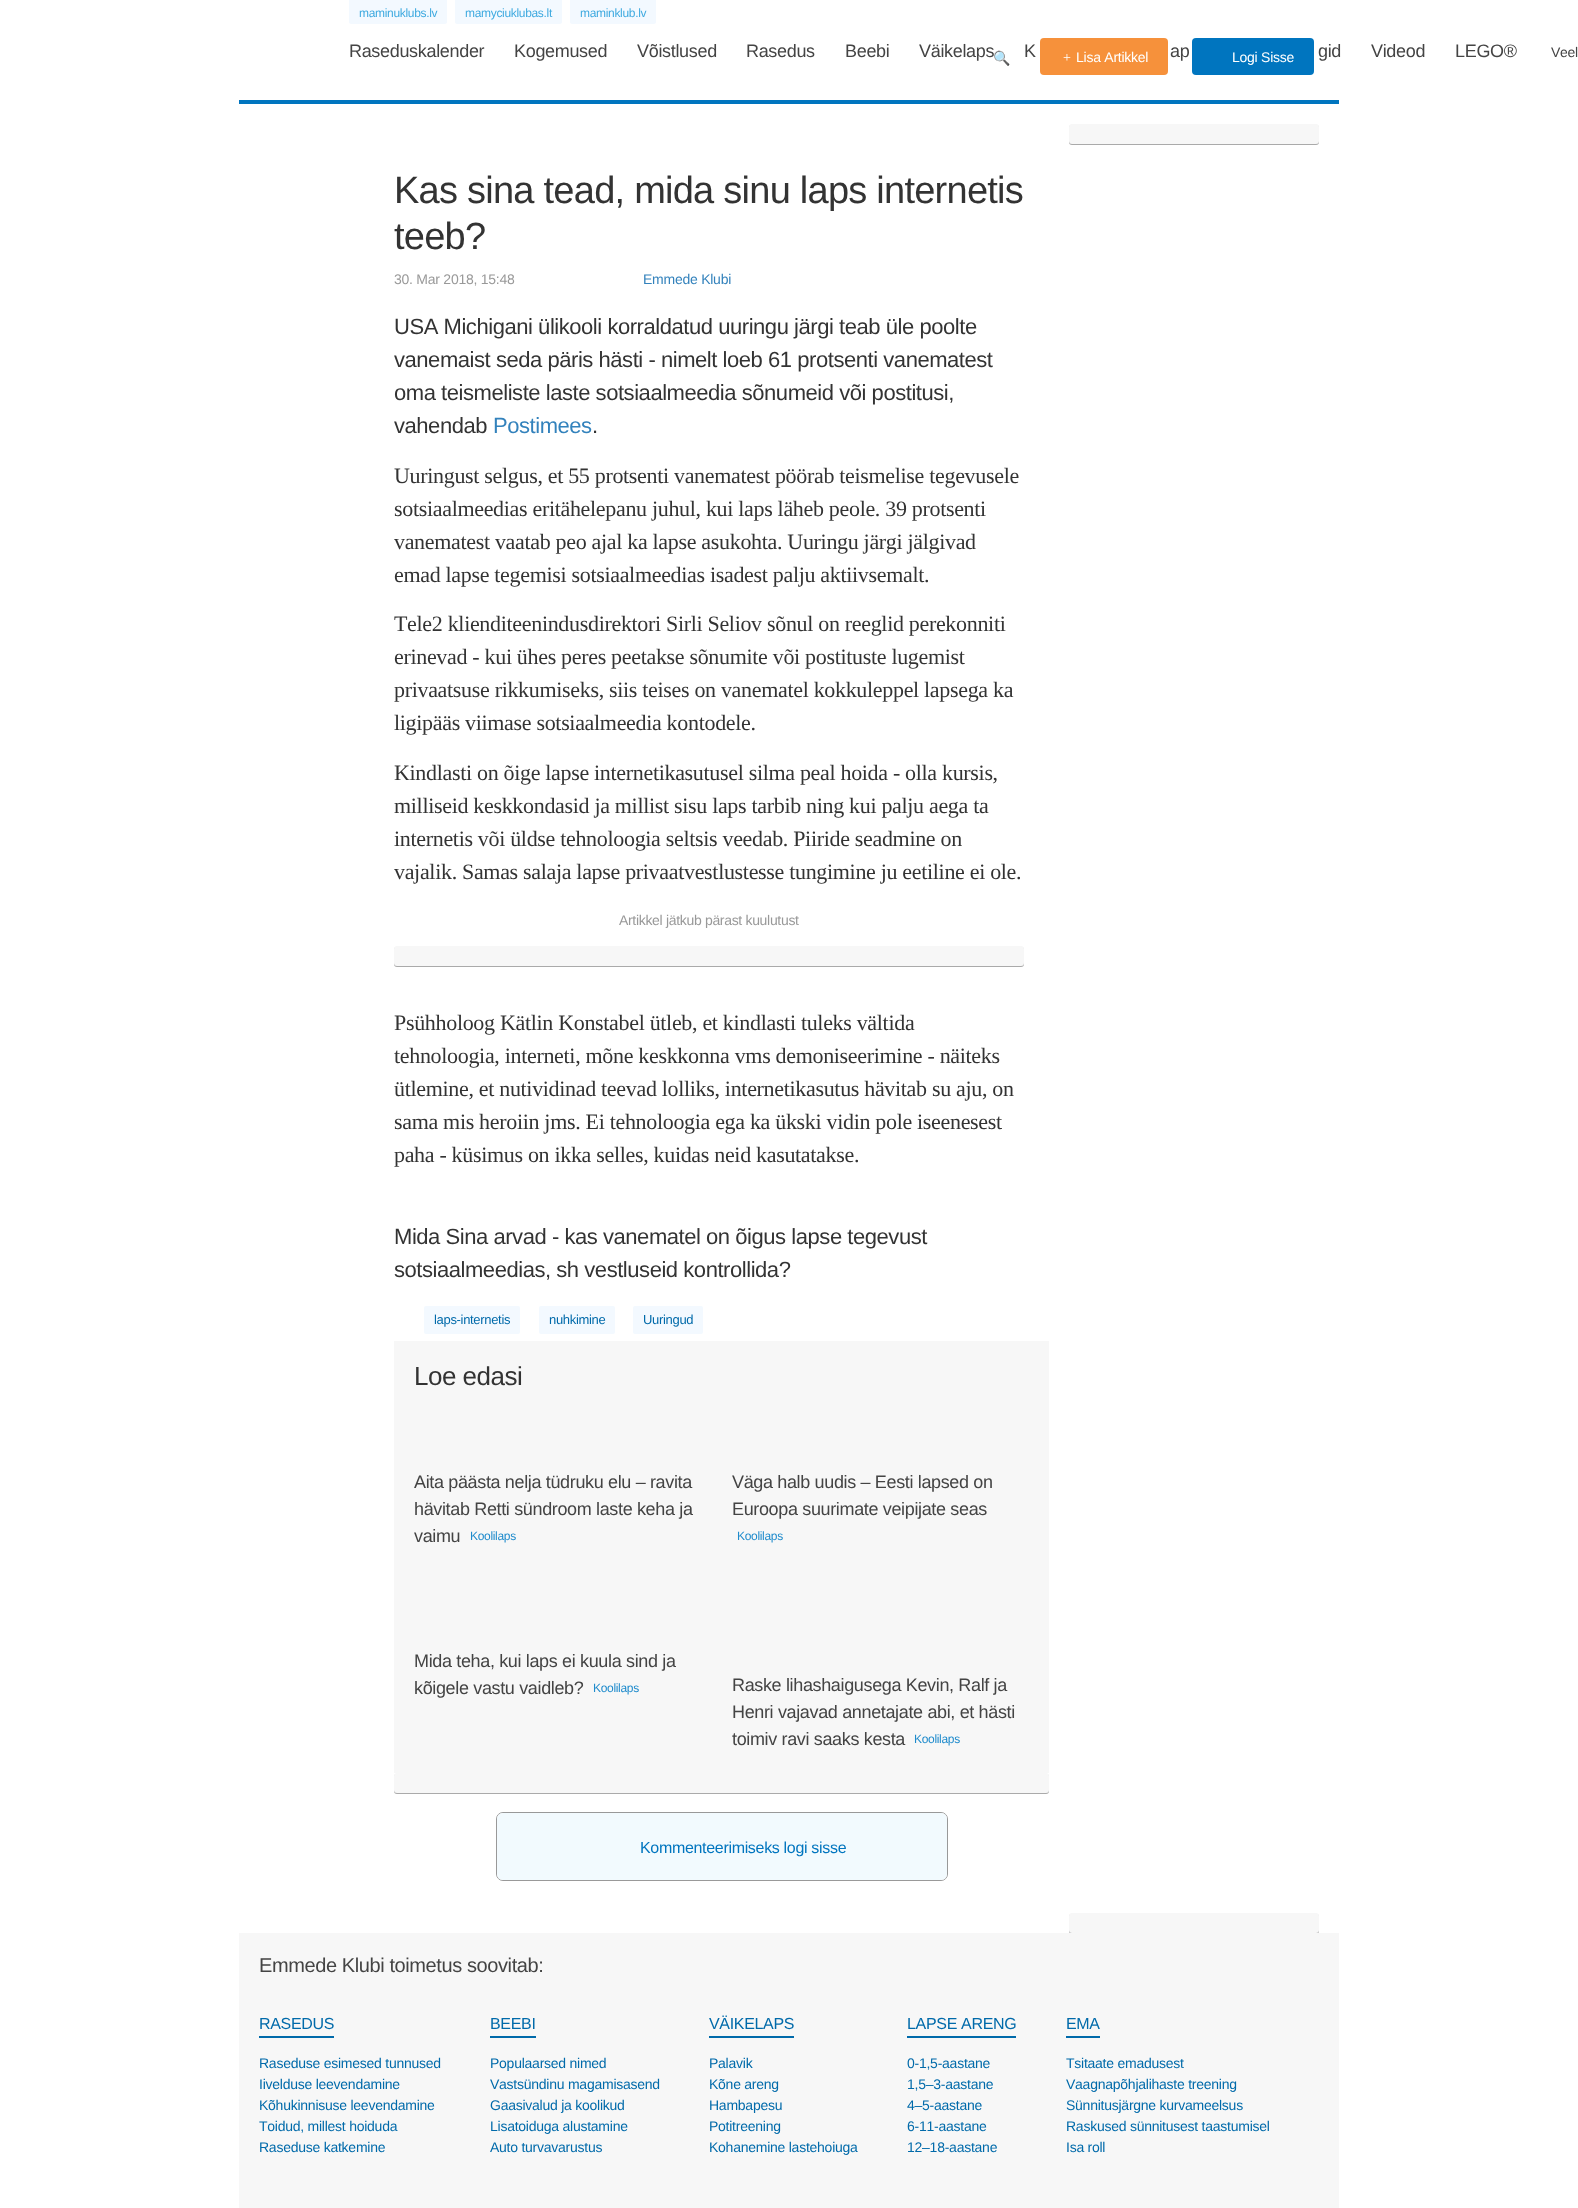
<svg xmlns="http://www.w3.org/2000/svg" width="1578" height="2208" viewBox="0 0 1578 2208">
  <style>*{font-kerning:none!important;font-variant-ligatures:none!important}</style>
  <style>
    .t1 { font: 12px Liberation Sans; letter-spacing: -0.32px; fill: #3faae0; }
    .t2 { font: 18px Liberation Sans; letter-spacing: -0.32px; fill: #444; }
    .t3 { font: 14px Liberation Sans; letter-spacing: -0.32px; fill: #444; }
    .t4 { font: 14px Noto Color Emoji; letter-spacing: -0.25px; fill: #444; }
    .t5 { font: 14px Liberation Serif; letter-spacing: -0.25px; fill: #fff; }
    .t6 { font: 14px Liberation Sans; letter-spacing: -0.25px; fill: #fff; }
    .t7 { font: 38px Liberation Sans; letter-spacing: -0.75px; fill: #333; }
    .t8 { font: 14px Liberation Sans; letter-spacing: -0.25px; fill: #999; }
    .t9 { font: 14px Liberation Sans; letter-spacing: -0.25px; fill: #3382bc; }
    .t10 { font: 22px Liberation Sans; letter-spacing: -0.45px; fill: #333; }
    .t11 { font: 22px Liberation Sans; letter-spacing: -0.45px; fill: #3382bc; }
    .t12 { font: 22px Liberation Serif; letter-spacing: -0.32px; fill: #333; }
    .t13 { font: 14px Liberation Sans; letter-spacing: -0.32px; fill: #999; }
    .t14 { font: 13px Liberation Sans; letter-spacing: -0.32px; fill: #006aaa; }
    .t15 { font: 26px Liberation Sans; letter-spacing: -0.5px; fill: #333; }
    .t16 { font: 18px Liberation Sans; letter-spacing: -0.35px; fill: #444; }
    .t17 { font: 12px Liberation Sans; letter-spacing: -0.32px; fill: #1f8bcc; }
    .t18 { font: 16px Liberation Sans; letter-spacing: -0.32px; fill: #0075bf; }
    .t19 { font: 20px Liberation Sans; letter-spacing: -0.4px; fill: #444; }
    .t20 { font: 16px Liberation Sans; letter-spacing: -0.32px; fill: #006aaa; }
    .t21 { font: 14px Liberation Sans; letter-spacing: -0.25px; fill: #006aaa; }
  </style>
  <rect width="100%" height="100%" fill="#fff"/>
  <rect x="239" y="100" width="1100" height="4" fill="#0075bf"/>
  <path d="M349 0H447V22C447 23 446 24 445 24H351C350 24 349 23 349 22Z" fill="#f3f9ff"/>
  <text x="359" y="17" class="t1">maminuklubs.lv</text>
  <path d="M455 0H562V22C562 23 561 24 560 24H457C456 24 455 23 455 22Z" fill="#f3f9ff"/>
  <text x="465" y="17" class="t1">mamyciuklubas.lt</text>
  <path d="M570 0H656V22C656 23 655 24 654 24H572C571 24 570 23 570 22Z" fill="#f3f9ff"/>
  <text x="580" y="17" class="t1">maminklub.lv</text>
  <text x="349" y="57" class="t2">Raseduskalender</text>
  <text x="514" y="57" class="t2">Kogemused</text>
  <text x="637" y="57" class="t2">Võistlused</text>
  <text x="746" y="57" class="t2">Rasedus</text>
  <text x="845" y="57" class="t2">Beebi</text>
  <text x="919" y="57" class="t2">Väikelaps</text>
  <text x="1024" y="57" class="t2">K</text>
  <text x="1170" y="57" class="t2">ap</text>
  <text x="1318" y="57" class="t2">gid</text>
  <text x="1371" y="57" class="t2">Videod</text>
  <text x="1455" y="57" class="t2">LEGO®</text>
  <text x="1551" y="57" class="t3">Veel</text>
  <text x="993" y="63" class="t4">🔍</text>
  <rect x="1040" y="38" width="128" height="37" rx="4" fill="#f6913b"/>
  <text x="1063" y="62" class="t5">+</text>
  <text x="1076" y="62" class="t6">Lisa Artikkel</text>
  <rect x="1192" y="38" width="122" height="37" rx="4" fill="#0075bf"/>
  <text x="1232" y="62" class="t6">Logi Sisse</text>
  <rect x="1069" y="125" width="250" height="20" rx="3" fill="#aaa" filter="blur(0.5px)"/>
  <rect x="1069" y="124" width="250" height="20" rx="3" fill="#f7f7f7"/>
  <text x="394" y="203" class="t7">Kas sina tead, mida sinu laps internetis</text>
  <text x="394" y="249" class="t7">teeb?</text>
  <text x="394" y="284" class="t8">30. Mar 2018, 15:48</text>
  <text x="643" y="284" class="t9">Emmede Klubi</text>
  <text x="394" y="334" class="t10">USA Michigani ülikooli korraldatud uuringu järgi teab üle poolte</text>
  <text x="394" y="367" class="t10">vanemaist seda päris hästi - nimelt loeb 61 protsenti vanematest</text>
  <text x="394" y="400" class="t10">oma teismeliste laste sotsiaalmeedia sõnumeid või postitusi,</text>
  <text x="394" y="433" class="t10">vahendab</text>
  <text x="493" y="433" class="t11">Postimees</text>
  <text x="592" y="433" class="t10">.</text>
  <text x="394" y="483" class="t12">Uuringust selgus, et 55 protsenti vanematest pöörab teismelise tegevusele</text>
  <text x="394" y="516" class="t12">sotsiaalmeedias eritähelepanu juhul, kui laps läheb peole. 39 protsenti</text>
  <text x="394" y="549" class="t12">vanematest vaatab peo ajal ka lapse asukohta. Uuringu järgi jälgivad</text>
  <text x="394" y="582" class="t12">emad lapse tegemisi sotsiaalmeedias isadest palju aktiivsemalt.</text>
  <text x="394" y="631" class="t12">Tele2 klienditeenindusdirektori Sirli Seliov sõnul on reeglid perekonniti</text>
  <text x="394" y="664" class="t12">erinevad - kui ühes peres peetakse sõnumite või postituste lugemist</text>
  <text x="394" y="697" class="t12">privaatsuse rikkumiseks, siis teises on vanematel kokkuleppel lapsega ka</text>
  <text x="394" y="730" class="t12">ligipääs viimase sotsiaalmeedia kontodele.</text>
  <text x="394" y="780" class="t12">Kindlasti on õige lapse internetikasutusel silma peal hoida - olla kursis,</text>
  <text x="394" y="813" class="t12">milliseid keskkondasid ja millist sisu laps tarbib ning kui palju aega ta</text>
  <text x="394" y="846" class="t12">internetis või üldse tehnoloogia seltsis veedab. Piiride seadmine on</text>
  <text x="394" y="879" class="t12">vajalik. Samas salaja lapse privaatvestlustesse tungimine ju eetiline ei ole.</text>
  <text x="619" y="925" class="t13">Artikkel jätkub pärast kuulutust</text>
  <rect x="394" y="947" width="630" height="20" rx="3" fill="#aaa" filter="blur(0.5px)"/>
  <rect x="394" y="946" width="630" height="20" rx="3" fill="#f7f7f7"/>
  <text x="394" y="1030" class="t12">Psühholoog Kätlin Konstabel ütleb, et kindlasti tuleks vältida</text>
  <text x="394" y="1063" class="t12">tehnoloogia, interneti, mõne keskkonna vms demoniseerimine - näiteks</text>
  <text x="394" y="1096" class="t12">ütlemine, et nutividinad teevad lolliks, internetikasutus hävitab su aju, on</text>
  <text x="394" y="1129" class="t12">sama mis heroiin jms. Ei tehnoloogia ega ka ükski vidin pole iseenesest</text>
  <text x="394" y="1162" class="t12">paha - küsimus on ikka selles, kuidas neid kasutatakse.</text>
  <text x="394" y="1244" class="t10">Mida Sina arvad - kas vanematel on õigus lapse tegevust</text>
  <text x="394" y="1277" class="t10">sotsiaalmeedias, sh vestluseid kontrollida?</text>
  <rect x="424" y="1306" width="96" height="28" rx="2" fill="#f3f9ff"/>
  <text x="434" y="1324" class="t14">laps-internetis</text>
  <rect x="539" y="1306" width="76" height="28" rx="2" fill="#f3f9ff"/>
  <text x="549" y="1324" class="t14">nuhkimine</text>
  <rect x="633" y="1306" width="70" height="28" rx="2" fill="#f3f9ff"/>
  <text x="643" y="1324" class="t14">Uuringud</text>
  <rect x="394" y="1341" width="655" height="432" fill="#f7f7f7"/>
  <text x="414" y="1385" class="t15">Loe edasi</text>
  <text x="414" y="1488" class="t16">Aita päästa nelja tüdruku elu – ravita</text>
  <text x="414" y="1515" class="t16">hävitab Retti sündroom laste keha ja</text>
  <text x="414" y="1542" class="t16">vaimu</text>
  <text x="470" y="1540" class="t17">Koolilaps</text>
  <text x="732" y="1488" class="t16">Väga halb uudis – Eesti lapsed on</text>
  <text x="732" y="1515" class="t16">Euroopa suurimate veipijate seas</text>
  <text x="737" y="1540" class="t17">Koolilaps</text>
  <text x="414" y="1667" class="t16">Mida teha, kui laps ei kuula sind ja</text>
  <text x="414" y="1694" class="t16">kõigele vastu vaidleb?</text>
  <text x="593" y="1692" class="t17">Koolilaps</text>
  <text x="732" y="1691" class="t16">Raske lihashaigusega Kevin, Ralf ja</text>
  <text x="732" y="1718" class="t16">Henri vajavad annetajate abi, et hästi</text>
  <text x="732" y="1745" class="t16">toimiv ravi saaks kesta</text>
  <text x="914" y="1743" class="t17">Koolilaps</text>
  <rect x="394" y="1774" width="655" height="20" rx="3" fill="#aaa" filter="blur(0.5px)"/>
  <rect x="394" y="1773" width="655" height="20" rx="3" fill="#f7f7f7"/>
  <rect x="496.5" y="1812.5" width="451" height="68" rx="6.5" fill="none" stroke="#999"/>
  <rect x="497" y="1813" width="450" height="67" rx="6" fill="#f2fafe"/>
  <text x="640" y="1853" class="t18">Kommenteerimiseks logi sisse</text>
  <rect x="1069" y="1914" width="250" height="20" rx="3" fill="#aaa" filter="blur(0.5px)"/>
  <rect x="1069" y="1913" width="250" height="20" rx="3" fill="#f7f7f7"/>
  <rect x="239" y="1933" width="1100" height="275" fill="#f7f7f7"/>
  <text x="259" y="1972" class="t19">Emmede Klubi toimetus soovitab:</text>
  <rect x="259" y="2036" width="75" height="2" fill="#006aaa"/>
  <text x="259" y="2029" class="t20">RASEDUS</text>
  <text x="259" y="2068" class="t21">Raseduse esimesed tunnused</text>
  <text x="259" y="2089" class="t21">Iivelduse leevendamine</text>
  <text x="259" y="2110" class="t21">Kõhukinnisuse leevendamine</text>
  <text x="259" y="2131" class="t21">Toidud, millest hoiduda</text>
  <text x="259" y="2152" class="t21">Raseduse katkemine</text>
  <rect x="490" y="2036" width="46" height="2" fill="#006aaa"/>
  <text x="490" y="2029" class="t20">BEEBI</text>
  <text x="490" y="2068" class="t21">Populaarsed nimed</text>
  <text x="490" y="2089" class="t21">Vastsündinu magamisasend</text>
  <text x="490" y="2110" class="t21">Gaasivalud ja koolikud</text>
  <text x="490" y="2131" class="t21">Lisatoiduga alustamine</text>
  <text x="490" y="2152" class="t21">Auto turvavarustus</text>
  <rect x="709" y="2036" width="85" height="2" fill="#006aaa"/>
  <text x="709" y="2029" class="t20">VÄIKELAPS</text>
  <text x="709" y="2068" class="t21">Palavik</text>
  <text x="709" y="2089" class="t21">Kõne areng</text>
  <text x="709" y="2110" class="t21">Hambapesu</text>
  <text x="709" y="2131" class="t21">Potitreening</text>
  <text x="709" y="2152" class="t21">Kohanemine lastehoiuga</text>
  <rect x="907" y="2036" width="109" height="2" fill="#006aaa"/>
  <text x="907" y="2029" class="t20">LAPSE ARENG</text>
  <text x="907" y="2068" class="t21">0-1,5-aastane</text>
  <text x="907" y="2089" class="t21">1,5–3-aastane</text>
  <text x="907" y="2110" class="t21">4–5-aastane</text>
  <text x="907" y="2131" class="t21">6-11-aastane</text>
  <text x="907" y="2152" class="t21">12–18-aastane</text>
  <rect x="1066" y="2036" width="34" height="2" fill="#006aaa"/>
  <text x="1066" y="2029" class="t20">EMA</text>
  <text x="1066" y="2068" class="t21">Tsitaate emadusest</text>
  <text x="1066" y="2089" class="t21">Vaagnapõhjalihaste treening</text>
  <text x="1066" y="2110" class="t21">Sünnitusjärgne kurvameelsus</text>
  <text x="1066" y="2131" class="t21">Raskused sünnitusest taastumisel</text>
  <text x="1066" y="2152" class="t21">Isa roll</text>
</svg>
